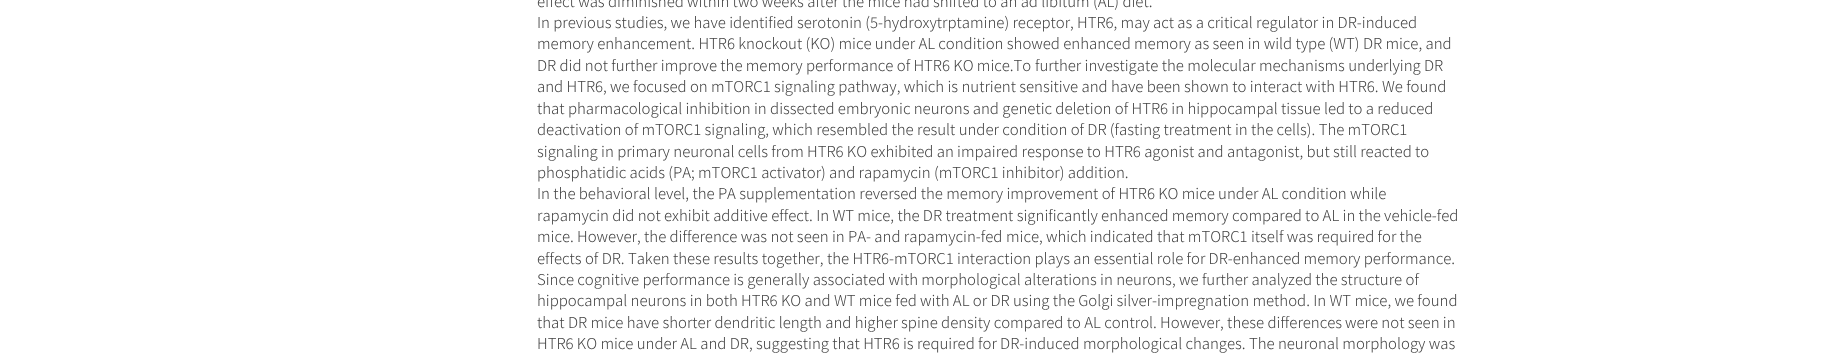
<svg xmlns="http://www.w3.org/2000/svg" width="1828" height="354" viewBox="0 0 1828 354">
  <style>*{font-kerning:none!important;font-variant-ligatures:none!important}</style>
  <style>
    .t1 { font: 300 15px Noto Sans TC; fill: #444; }
  </style>
  <rect width="100%" height="100%" fill="#fff"/>
  <text x="537" y="7" class="t1">effect was diminished within two weeks after the mice had shifted to an ad libitum (AL) diet.</text>
  <text x="537" y="28" class="t1">In previous studies, we have identified serotonin (5-hydroxytrptamine) receptor,</text>
  <text x="1077" y="28" class="t1">HTR6, may act as a critical regulator in DR-induced</text>
  <text x="537" y="49" class="t1">memory enhancement. HTR6 knockout (KO) mice under AL condition showed enhanced memory as seen in wild type (WT) DR mice, and</text>
  <text x="537" y="71" class="t1">DR did not further improve the memory performance of HTR6 KO mice.To</text>
  <text x="1035" y="71" class="t1">further investigate the molecular mechanisms underlying DR</text>
  <text x="537" y="92" class="t1">and HTR6, we focused on mTORC1 signaling pathway, which is nutrient sensitive and have been shown to interact with HTR6. We found</text>
  <text x="537" y="114" class="t1">that pharmacological inhibition in dissected embryonic neurons and genetic deletion of HTR6 in hippocampal tissue led to a reduced</text>
  <text x="537" y="135" class="t1">deactivation of mTORC1 signaling, which resembled the result under condition of DR (fasting treatment</text>
  <text x="1235" y="135" class="t1">in the cells). The mTORC1</text>
  <text x="537" y="157" class="t1">signaling in primary neuronal cells from HTR6 KO exhibited an impaired response to HTR6 agonist and antagonist, but still reacted</text>
  <text x="1415" y="157" class="t1">to</text>
  <text x="537" y="178" class="t1">phosphatidic acids (PA; mTORC1 activator) and rapamycin</text>
  <text x="934" y="178" class="t1">(mTORC1 inhibitor) addition.</text>
  <text x="537" y="199" class="t1">In the behavioral level, the PA supplementation reversed the memory improvement of HTR6 KO mice under AL condition while</text>
  <text x="537" y="221" class="t1">rapamycin did not exhibit additive effect. In WT mice, the DR treatment significantly enhanced memory compared to AL in the vehicle-fed</text>
  <text x="537" y="242" class="t1">mice. However, the difference was not seen in PA- and rapamycin-fed</text>
  <text x="1006" y="242" class="t1">mice, which indicated that mTORC1 itself was required for the</text>
  <text x="537" y="264" class="t1">effects of DR. Taken these results together,</text>
  <text x="827" y="264" class="t1">the HTR6-mTORC1 interaction plays an essential role for DR-enhanced memory performance.</text>
  <text x="537" y="285" class="t1">Since cognitive performance is generally associated with morphological alterations in neurons,</text>
  <text x="1179" y="285" class="t1">we further analyzed the structure of</text>
  <text x="537" y="306" class="t1">hippocampal neurons in both HTR6 KO and WT mice fed with AL or DR using the Golgi silver-impregnation method. In WT mice, we found</text>
  <text x="537" y="328" class="t1">that DR mice have shorter dendritic length and higher spine density compared to AL control. However, these differences</text>
  <text x="1345" y="328" class="t1">were not seen in</text>
  <text x="537" y="349" class="t1">HTR6 KO mice under AL and DR, suggesting that HTR6 is required for DR-induced morphological changes. The neuronal morphology was</text>
</svg>
